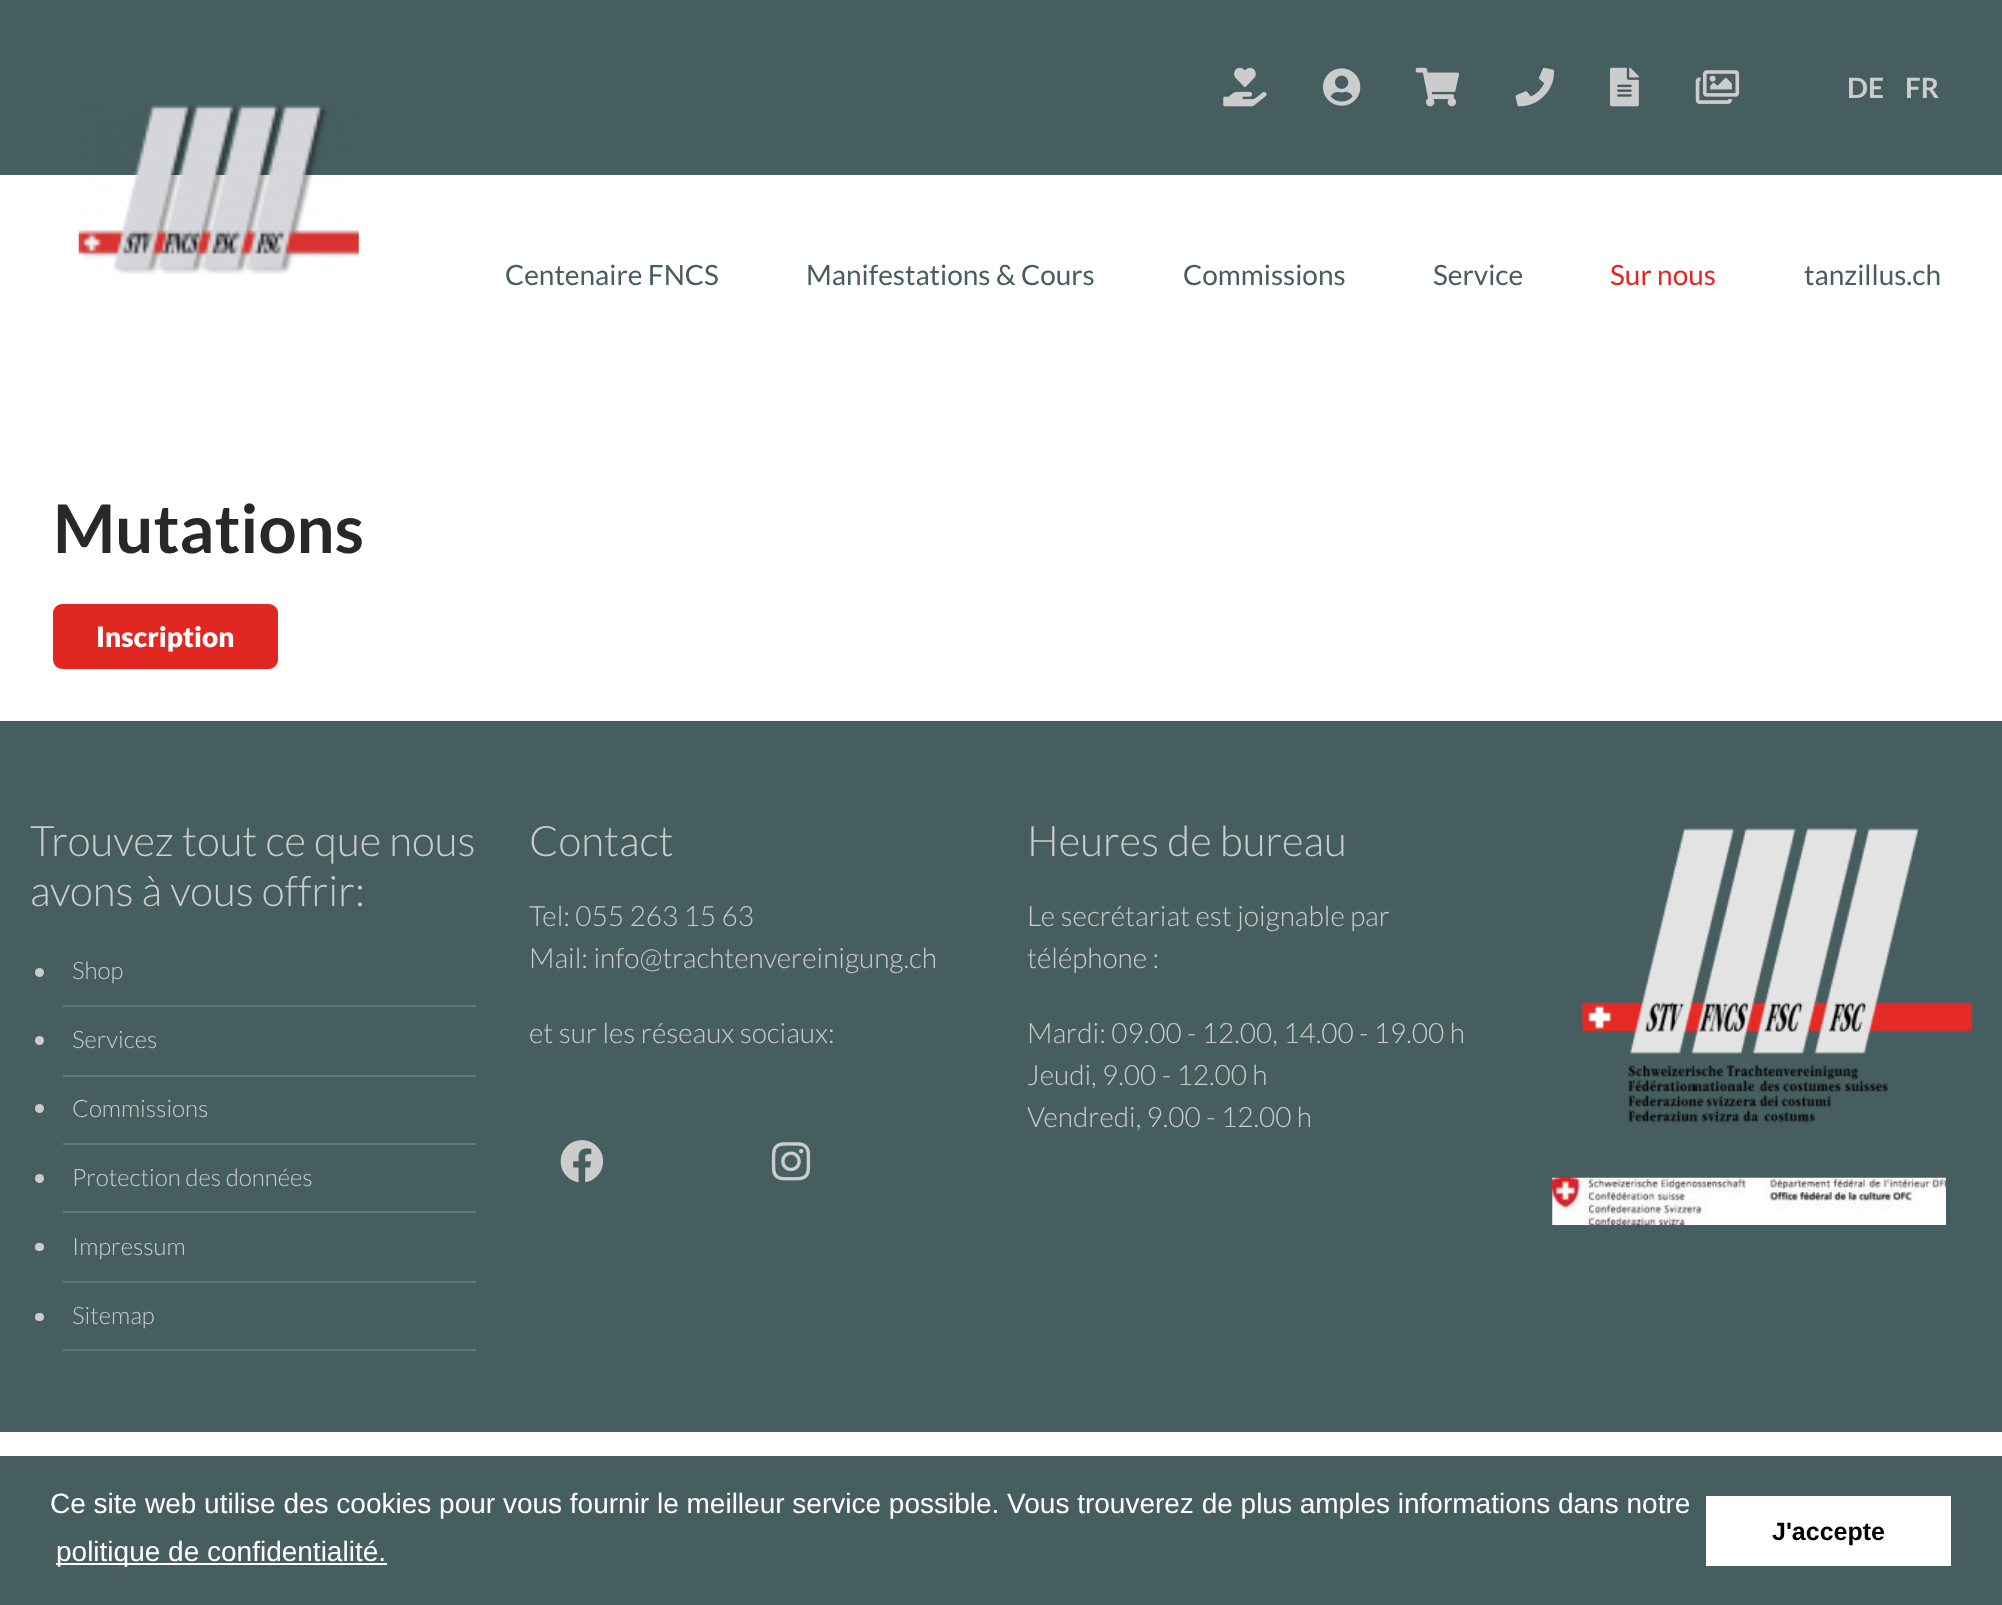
<svg xmlns="http://www.w3.org/2000/svg" width="2002" height="1605" viewBox="0 0 2002 1605">
  <style>
    .t1 { font: bold 28px Lato; fill: #ccc; }
    .t2 { font: 28px Lato; fill: #475e61; }
    .t3 { font: 28px Lato; fill: #e12722; }
    .t4 { font: bold 67px Lato; fill: #282828; }
    .t5 { font: 900 28px Lato; fill: #fff; }
    .t6 { font: 300 42px Lato; fill: #ccc; }
    .t7 { font: 300 24px Lato; fill: #ccc; }
    .t8 { font: 300 28px Lato; fill: #ccc; }
    .t9 { font: 28px Liberation Sans; fill: #fff; }
    .t10 { font: bold 25px Liberation Sans; fill: #000; }
  </style>
  <rect width="100%" height="100%" fill="#fff"/>
  <rect x="0" y="0" width="2002" height="175" fill="#475e61"/>
  <image x="1223" y="67" width="44" height="40" href="images/1.png"/>
  <image x="1323" y="68" width="38" height="38" href="images/2.png"/>
  <image x="1415" y="67" width="44" height="40" href="images/3.png"/>
  <image x="1515" y="67" width="40" height="40" href="images/4.png"/>
  <image x="1610" y="67" width="29" height="40" href="images/5.png"/>
  <image x="1695" y="70" width="45" height="34" href="images/6.png"/>
  <text x="1847" y="98" class="t1">DE</text>
  <text x="1905" y="98" class="t1">FR</text>
  <image x="78" y="105" width="281" height="170" href="images/7.png"/>
  <text x="505" y="285" class="t2">Centenaire FNCS</text>
  <text x="806" y="285" class="t2">Manifestations &amp; Cours</text>
  <text x="1183" y="285" class="t2">Commissions</text>
  <text x="1433" y="285" class="t2">Service</text>
  <text x="1610" y="285" class="t3">Sur nous</text>
  <text x="1804" y="285" class="t2">tanzillus.ch</text>
  <text x="53" y="553" class="t4">Mutations</text>
  <rect x="54" y="605" width="223" height="63" rx="8" fill="#e12722" stroke="#e12722" stroke-width="2"/>
  <text x="96" y="647" class="t5">Inscription</text>
  <rect x="0" y="721" width="2002" height="711" fill="#475e61"/>
  <text x="30" y="856" class="t6">Trouvez tout ce que nous</text>
  <text x="30" y="906" class="t6">avons à vous offrir:</text>
  <circle cx="39.5" cy="972.5" r="4.5" fill="#ccc"/>
  <rect x="63" y="1005" width="413" height="2" fill="#637679"/>
  <text x="72" y="979" class="t7">Shop</text>
  <circle cx="39.5" cy="1040.5" r="4.5" fill="#ccc"/>
  <rect x="63" y="1075" width="413" height="2" fill="#637679"/>
  <text x="72" y="1048" class="t7">Services</text>
  <circle cx="39.5" cy="1108.5" r="4.5" fill="#ccc"/>
  <rect x="63" y="1143" width="413" height="2" fill="#637679"/>
  <text x="72" y="1117" class="t7">Commissions</text>
  <circle cx="39.5" cy="1178.5" r="4.5" fill="#ccc"/>
  <rect x="63" y="1211" width="413" height="2" fill="#637679"/>
  <text x="72" y="1186" class="t7">Protection des données</text>
  <rect x="35" y="1243" width="9" height="8" rx="4" fill="#ccc"/>
  <rect x="63" y="1281" width="413" height="2" fill="#637679"/>
  <text x="72" y="1255" class="t7">Impressum</text>
  <rect x="35" y="1313" width="9" height="8" rx="4" fill="#ccc"/>
  <rect x="63" y="1349" width="413" height="2" fill="#637679"/>
  <text x="72" y="1324" class="t7">Sitemap</text>
  <text x="529" y="856" class="t6">Contact</text>
  <text x="529" y="926" class="t8">Tel: 055 263 15 63</text>
  <text x="529" y="968" class="t8">Mail: info@trachtenvereinigung.ch</text>
  <text x="529" y="1043" class="t8">et sur les réseaux sociaux:</text>
  <image x="560" y="1140" width="44" height="43" href="images/8.png"/>
  <image x="771" y="1142" width="40" height="39" href="images/9.png"/>
  <text x="1027" y="856" class="t6">Heures de bureau</text>
  <text x="1027" y="926" class="t8">Le secrétariat est joignable par</text>
  <text x="1027" y="968" class="t8">téléphone :</text>
  <text x="1027" y="1043" class="t8">Mardi: 09.00 - 12.00, 14.00 - 19.00 h</text>
  <text x="1027" y="1085" class="t8">Jeudi, 9.00 - 12.00 h</text>
  <text x="1027" y="1127" class="t8">Vendredi, 9.00 - 12.00 h</text>
  <image x="1580" y="828" width="393" height="295" href="images/10.png"/>
  <image x="1552" y="1177" width="394" height="48" href="images/11.png"/>
  <rect x="0" y="1456" width="2002" height="149" fill="#475e61"/>
  <text x="50" y="1513" class="t9">Ce site web utilise des cookies pour vous fournir le meilleur service possible. Vous trouverez de plus amples informations dans notre</text>
  <rect x="56" y="1563" width="331" height="2" fill="#fff"/>
  <text x="56" y="1561" class="t9">politique de confidentialité.</text>
  <rect x="1706" y="1496" width="245" height="70" fill="#fff"/>
  <text x="1772" y="1540" class="t10">J'accepte</text>
</svg>
